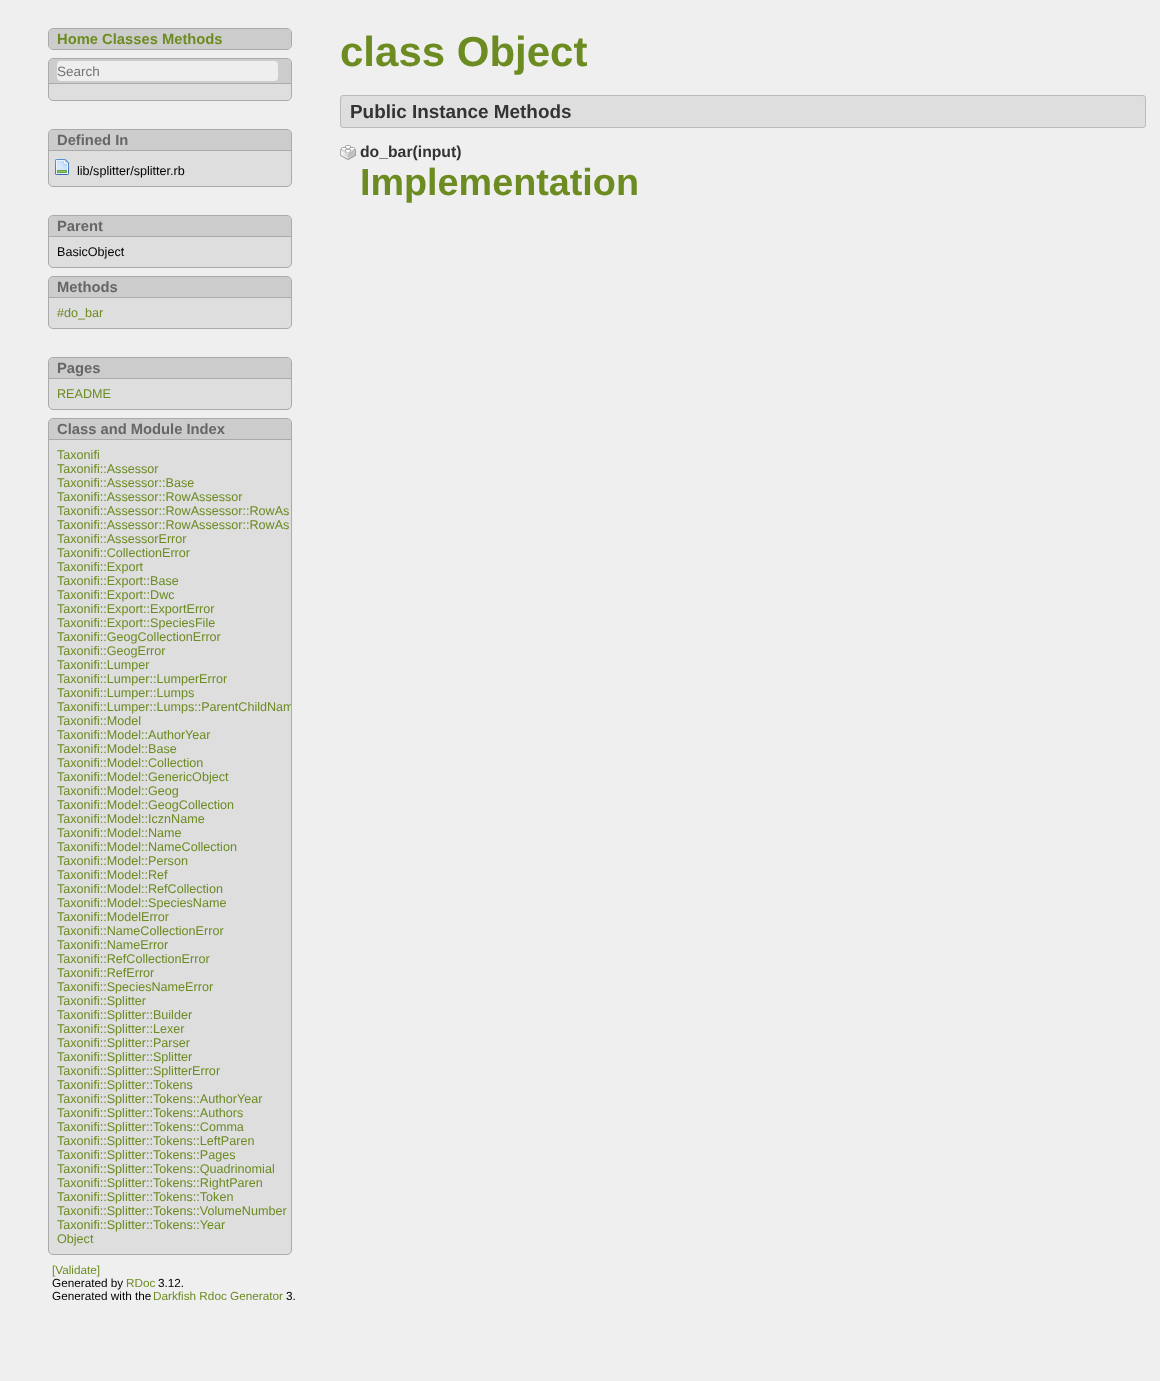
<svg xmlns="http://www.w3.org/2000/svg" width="1160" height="1381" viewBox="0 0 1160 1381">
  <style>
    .t1 { font: bold 14.75px Liberation Sans; fill: #6c8c22; }
    .t2 { font: 13.5px Liberation Sans; fill: #757575; }
    .t3 { font: bold 14.75px Liberation Sans; fill: #666; }
    .t4 { font: 12.6px Liberation Sans; fill: #000; }
    .t5 { font: 12.6px Liberation Sans; fill: #6c8c22; }
    .t6 { font: bold 42px Liberation Sans; fill: #6c8c22; }
    .t7 { font: bold 18.9px Liberation Sans; fill: #333; }
    .t8 { font: bold 15.75px Liberation Sans; fill: #333; }
    .t9 { font: bold 37.75px Liberation Sans; fill: #6c8c22; }
    .t10 { font: 11.75px Liberation Sans; fill: #6c8c22; }
    .t11 { font: 11.75px Liberation Sans; fill: #000; }
  </style>
  <defs>
    <clipPath id="clip1"><rect x="49" y="419" width="242" height="835" rx="4"/></clipPath>
  </defs>
  <rect width="100%" height="100%" fill="#efefef"/>
  <rect x="48.5" y="28.5" width="243" height="21" rx="4.5" fill="none" stroke="#aaa"/>
  <rect x="49" y="29" width="242" height="20" rx="4" fill="#ccc"/>
  <text x="57" y="44" class="t1">Home Classes Methods</text>
  <rect x="48.5" y="58.5" width="243" height="42" rx="4.5" fill="#dedede" stroke="#aaa"/>
  <path d="M53 59H287C289 59 291 61 291 63V84H49V63C49 61 51 59 53 59Z" fill="#ccc"/>
  <rect x="49" y="83" width="242" height="1" fill="#aaa"/>
  <rect x="57" y="61" width="221" height="20" rx="4" fill="#eee"/>
  <text x="57" y="76" class="t2">Search</text>
  <rect x="48.5" y="129.5" width="243" height="57" rx="4.5" fill="#dedede" stroke="#aaa"/>
  <path d="M53 130H287C289 130 291 132 291 134V151H49V134C49 132 51 130 53 130Z" fill="#ccc"/>
  <rect x="49" y="150" width="242" height="1" fill="#aaa"/>
  <text x="57" y="145" class="t3">Defined In</text>
  <image x="55" y="159" width="14" height="16" href="images/1.png"/>
  <text x="77" y="175" class="t4">lib/splitter/splitter.rb</text>
  <rect x="48.5" y="215.5" width="243" height="52" rx="4.5" fill="#dedede" stroke="#aaa"/>
  <path d="M53 216H287C289 216 291 218 291 220V237H49V220C49 218 51 216 53 216Z" fill="#ccc"/>
  <rect x="49" y="236" width="242" height="1" fill="#aaa"/>
  <text x="57" y="231" class="t3">Parent</text>
  <text x="57" y="256" class="t4">BasicObject</text>
  <rect x="48.5" y="276.5" width="243" height="52" rx="4.5" fill="#dedede" stroke="#aaa"/>
  <path d="M53 277H287C289 277 291 279 291 281V298H49V281C49 279 51 277 53 277Z" fill="#ccc"/>
  <rect x="49" y="297" width="242" height="1" fill="#aaa"/>
  <text x="57" y="292" class="t3">Methods</text>
  <text x="57" y="317" class="t5">#do_bar</text>
  <rect x="48.5" y="357.5" width="243" height="52" rx="4.5" fill="#dedede" stroke="#aaa"/>
  <path d="M53 358H287C289 358 291 360 291 362V379H49V362C49 360 51 358 53 358Z" fill="#ccc"/>
  <rect x="49" y="378" width="242" height="1" fill="#aaa"/>
  <text x="57" y="373" class="t3">Pages</text>
  <text x="57" y="398" class="t5">README</text>
  <rect x="48.5" y="418.5" width="243" height="836" rx="4.5" fill="#dedede" stroke="#aaa"/>
  <path d="M53 419H287C289 419 291 421 291 423V440H49V423C49 421 51 419 53 419Z" fill="#ccc"/>
  <rect x="49" y="439" width="242" height="1" fill="#aaa"/>
  <text x="57" y="434" class="t3">Class and Module Index</text>
  <text x="57" y="459" class="t5">Taxonifi</text>
  <text x="57" y="473" class="t5">Taxonifi::Assessor</text>
  <text x="57" y="487" class="t5">Taxonifi::Assessor::Base</text>
  <text x="57" y="501" class="t5">Taxonifi::Assessor::RowAssessor</text>
  <text x="57" y="515" class="t5">Taxonifi::Assessor::RowAssessor::RowAs</text>
  <text x="57" y="529" class="t5">Taxonifi::Assessor::RowAssessor::RowAs</text>
  <text x="57" y="543" class="t5">Taxonifi::AssessorError</text>
  <text x="57" y="557" class="t5">Taxonifi::CollectionError</text>
  <text x="57" y="571" class="t5">Taxonifi::Export</text>
  <text x="57" y="585" class="t5">Taxonifi::Export::Base</text>
  <text x="57" y="599" class="t5">Taxonifi::Export::Dwc</text>
  <text x="57" y="613" class="t5">Taxonifi::Export::ExportError</text>
  <text x="57" y="627" class="t5">Taxonifi::Export::SpeciesFile</text>
  <text x="57" y="641" class="t5">Taxonifi::GeogCollectionError</text>
  <text x="57" y="655" class="t5">Taxonifi::GeogError</text>
  <text x="57" y="669" class="t5">Taxonifi::Lumper</text>
  <text x="57" y="683" class="t5">Taxonifi::Lumper::LumperError</text>
  <text x="57" y="697" class="t5">Taxonifi::Lumper::Lumps</text>
  <g clip-path="url(#clip1)">
    <text x="57" y="711" class="t5">Taxonifi::Lumper::Lumps::ParentChildNam</text>
  </g>
  <text x="57" y="725" class="t5">Taxonifi::Model</text>
  <text x="57" y="739" class="t5">Taxonifi::Model::AuthorYear</text>
  <text x="57" y="753" class="t5">Taxonifi::Model::Base</text>
  <text x="57" y="767" class="t5">Taxonifi::Model::Collection</text>
  <text x="57" y="781" class="t5">Taxonifi::Model::GenericObject</text>
  <text x="57" y="795" class="t5">Taxonifi::Model::Geog</text>
  <text x="57" y="809" class="t5">Taxonifi::Model::GeogCollection</text>
  <text x="57" y="823" class="t5">Taxonifi::Model::IcznName</text>
  <text x="57" y="837" class="t5">Taxonifi::Model::Name</text>
  <text x="57" y="851" class="t5">Taxonifi::Model::NameCollection</text>
  <text x="57" y="865" class="t5">Taxonifi::Model::Person</text>
  <text x="57" y="879" class="t5">Taxonifi::Model::Ref</text>
  <text x="57" y="893" class="t5">Taxonifi::Model::RefCollection</text>
  <text x="57" y="907" class="t5">Taxonifi::Model::SpeciesName</text>
  <text x="57" y="921" class="t5">Taxonifi::ModelError</text>
  <text x="57" y="935" class="t5">Taxonifi::NameCollectionError</text>
  <text x="57" y="949" class="t5">Taxonifi::NameError</text>
  <text x="57" y="963" class="t5">Taxonifi::RefCollectionError</text>
  <text x="57" y="977" class="t5">Taxonifi::RefError</text>
  <text x="57" y="991" class="t5">Taxonifi::SpeciesNameError</text>
  <text x="57" y="1005" class="t5">Taxonifi::Splitter</text>
  <text x="57" y="1019" class="t5">Taxonifi::Splitter::Builder</text>
  <text x="57" y="1033" class="t5">Taxonifi::Splitter::Lexer</text>
  <text x="57" y="1047" class="t5">Taxonifi::Splitter::Parser</text>
  <text x="57" y="1061" class="t5">Taxonifi::Splitter::Splitter</text>
  <text x="57" y="1075" class="t5">Taxonifi::Splitter::SplitterError</text>
  <text x="57" y="1089" class="t5">Taxonifi::Splitter::Tokens</text>
  <text x="57" y="1103" class="t5">Taxonifi::Splitter::Tokens::AuthorYear</text>
  <text x="57" y="1117" class="t5">Taxonifi::Splitter::Tokens::Authors</text>
  <text x="57" y="1131" class="t5">Taxonifi::Splitter::Tokens::Comma</text>
  <text x="57" y="1145" class="t5">Taxonifi::Splitter::Tokens::LeftParen</text>
  <text x="57" y="1159" class="t5">Taxonifi::Splitter::Tokens::Pages</text>
  <text x="57" y="1173" class="t5">Taxonifi::Splitter::Tokens::Quadrinomial</text>
  <text x="57" y="1187" class="t5">Taxonifi::Splitter::Tokens::RightParen</text>
  <text x="57" y="1201" class="t5">Taxonifi::Splitter::Tokens::Token</text>
  <text x="57" y="1215" class="t5">Taxonifi::Splitter::Tokens::VolumeNumber</text>
  <text x="57" y="1229" class="t5">Taxonifi::Splitter::Tokens::Year</text>
  <text x="57" y="1243" class="t5">Object</text>
  <text x="340" y="66" class="t6">class Object</text>
  <rect x="340.5" y="95.5" width="805" height="32" rx="2.5" fill="#dedede" stroke="#bbb"/>
  <text x="350" y="118" class="t7">Public Instance Methods</text>
  <image x="340" y="145" width="16" height="15" href="images/2.png"/>
  <text x="360" y="157" class="t8">do_bar(input)</text>
  <text x="360" y="195" class="t9">Implementation</text>
  <text x="52" y="1274" class="t10">[Validate]</text>
  <text x="52" y="1287" class="t11">Generated by</text>
  <text x="126" y="1287" class="t10">RDoc</text>
  <text x="158" y="1287" class="t11">3.12.</text>
  <text x="52" y="1300" class="t11">Generated with the</text>
  <text x="153" y="1300" class="t10">Darkfish Rdoc Generator</text>
  <text x="286" y="1300" class="t11">3.</text>
</svg>
